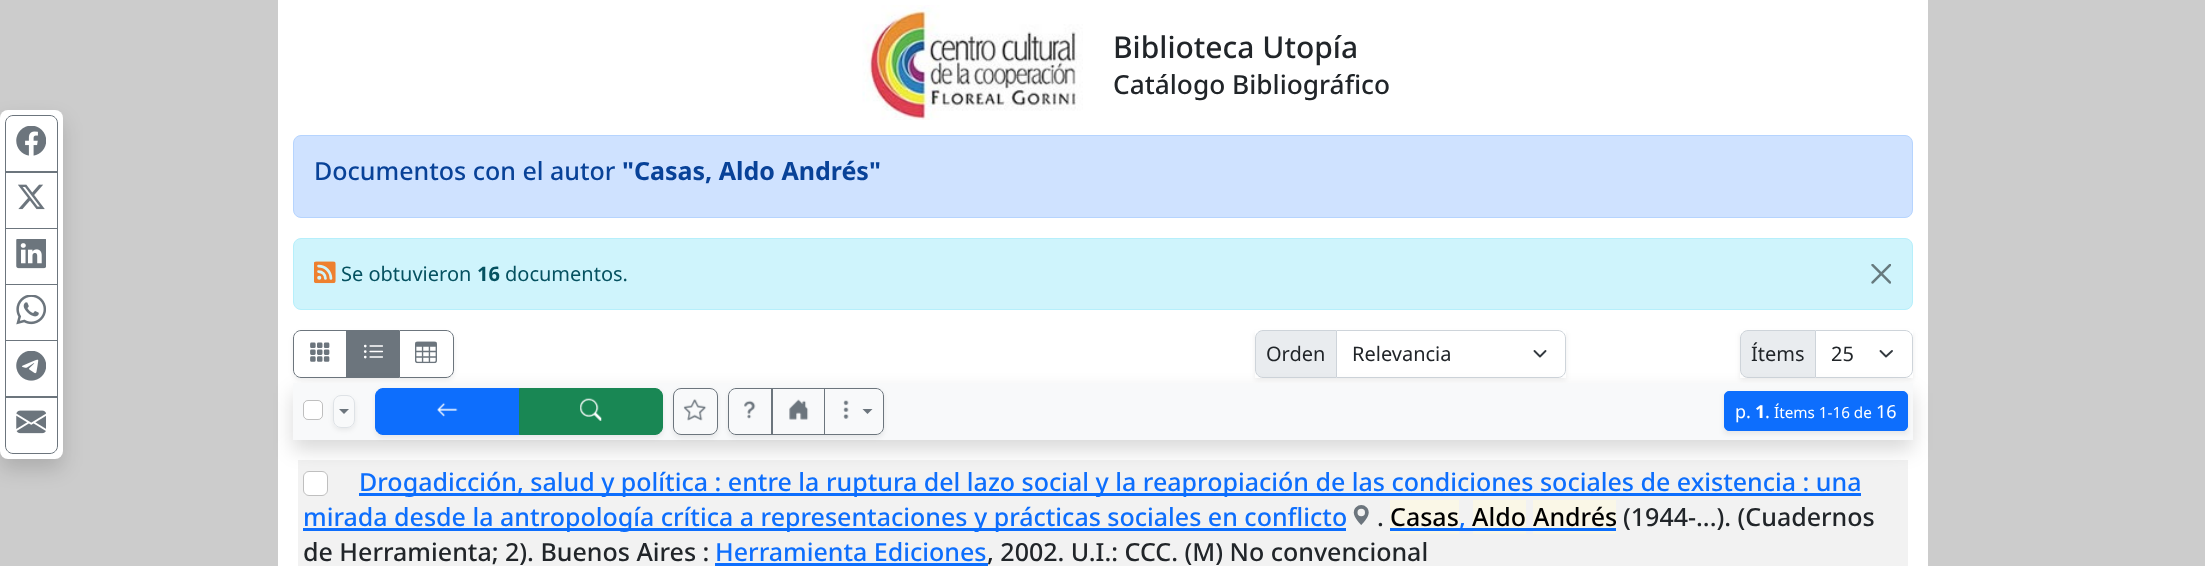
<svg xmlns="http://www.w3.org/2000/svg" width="2205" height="566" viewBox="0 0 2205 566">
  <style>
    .t1 { font: 500 30px Noto Sans; fill: #212529; }
    .t2 { font: 500 26.25px Noto Sans; fill: #212529; }
    .t3 { font: 500 25px Noto Sans; fill: #084298; }
    .t4 { font: bold 25px Noto Sans; fill: #084298; }
    .t5 { font: 20px Noto Sans; fill: #055160; }
    .t6 { font: bold 20px Noto Sans; fill: #055160; }
    .t7 { font: 20px Noto Sans; fill: #212529; }
    .t8 { font: 18px Noto Sans; fill: #fff; }
    .t9 { font: bold 18px Noto Sans; fill: #fff; }
    .t10 { font: 15.25px Noto Sans; fill: #fff; }
    .t11 { font: 500 25px Noto Sans; fill: #0d6efd; }
    .t12 { font: 500 25px Noto Sans; fill: #212529; }
    .t13 { font: 500 25px Noto Sans; fill: #000; }
  </style>
  <defs>
    <clipPath id="clip1"><path d="M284 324H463V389H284ZM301 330H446C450.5 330 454 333.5 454 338V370C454 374.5 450.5 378 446 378H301C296.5 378 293 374.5 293 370V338C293 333.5 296.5 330 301 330Z" clip-rule="evenodd"/></clipPath>
    <clipPath id="clip2"><path d="M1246 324H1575V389H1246ZM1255 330H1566V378H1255Z" clip-rule="evenodd"/></clipPath>
    <clipPath id="clip3"><path d="M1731 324H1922V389H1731ZM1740 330H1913V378H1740Z" clip-rule="evenodd"/></clipPath>
    <clipPath id="clip4"><path d="M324 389H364V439H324ZM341 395H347C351.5 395 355 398.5 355 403V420C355 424.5 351.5 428 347 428H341C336.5 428 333 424.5 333 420V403C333 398.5 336.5 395 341 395Z" clip-rule="evenodd"/></clipPath>
    <clipPath id="clip5"><path d="M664 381H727V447H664ZM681 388H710C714.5 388 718 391.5 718 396V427C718 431.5 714.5 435 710 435H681C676.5 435 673 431.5 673 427V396C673 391.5 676.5 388 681 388Z" clip-rule="evenodd"/></clipPath>
    <clipPath id="clip6"><path d="M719 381H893V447H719ZM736 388H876C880.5 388 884 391.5 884 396V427C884 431.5 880.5 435 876 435H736C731.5 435 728 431.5 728 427V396C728 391.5 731.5 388 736 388Z" clip-rule="evenodd"/></clipPath>
  </defs>
  <rect width="100%" height="100%" fill="#ccc"/>
  <rect x="278" y="0" width="1650" height="566" fill="#fff"/>
  <image x="862" y="5" width="221" height="115" href="images/1.png"/>
  <text x="1113" y="58" class="t1">Biblioteca Utopía</text>
  <text x="1113" y="94" class="t2">Catálogo Bibliográfico</text>
  <rect x="0" y="120" width="63" height="349" rx="8" fill="#00000026" filter="blur(10px)"/>
  <rect x="0" y="110" width="63" height="349" rx="8" fill="#fff"/>
  <path d="M13 115.5H50C54 115.5 57.5 119 57.5 123V172.5H5.5V123C5.5 119 9 115.5 13 115.5Z" fill="none" stroke="#6c757d"/>
  <image x="16" y="126" width="30" height="30" href="images/2.png"/>
  <rect x="5.5" y="171.5" width="52" height="57" fill="none" stroke="#6c757d"/>
  <image x="18" y="184" width="27" height="26" href="images/3.png"/>
  <rect x="5.5" y="228.5" width="52" height="56" fill="none" stroke="#6c757d"/>
  <image x="16" y="239" width="30" height="30" href="images/4.png"/>
  <rect x="5.5" y="284.5" width="52" height="56" fill="none" stroke="#6c757d"/>
  <image x="16" y="295" width="30" height="30" href="images/5.png"/>
  <rect x="5.5" y="340.5" width="52" height="57" fill="none" stroke="#6c757d"/>
  <image x="16" y="351" width="30" height="30" href="images/6.png"/>
  <path d="M5.5 396.5H57.5V446C57.5 450 54 453.5 50 453.5H13C9 453.5 5.5 450 5.5 446Z" fill="none" stroke="#6c757d"/>
  <image x="16" y="410" width="30" height="24" href="images/7.png"/>
  <rect x="293.5" y="135.5" width="1619" height="82" rx="7.5" fill="#cfe2ff" stroke="#b6d4fe"/>
  <text x="314" y="180" class="t3">Documentos con el autor</text>
  <text x="622" y="180" class="t4">"Casas, Aldo Andrés"</text>
  <rect x="293.5" y="238.5" width="1619" height="71" rx="7.5" fill="#cff4fc" stroke="#b6effb"/>
  <image x="314" y="261" width="22" height="23" href="images/8.png"/>
  <text x="341" y="281" class="t5">Se obtuvieron</text>
  <text x="477" y="281" class="t6">16</text>
  <text x="505" y="281" class="t5">documentos.</text>
  <image x="1871" y="264" width="20" height="20" href="images/9.png"/>
  <g clip-path="url(#clip1)">
    <rect x="293" y="333" width="161" height="47" rx="8" fill="#00000012" filter="blur(2.5px)"/>
  </g>
  <path d="M301 330.5H347.5V377.5H301C297 377.5 293.5 374 293.5 370V338C293.5 334 297 330.5 301 330.5Z" fill="none" stroke="#6c757d"/>
  <image x="310" y="342" width="20" height="20" href="images/10.png"/>
  <rect x="346" y="330" width="53" height="48" fill="#6c757d"/>
  <image x="363" y="344" width="20" height="15" href="images/11.png"/>
  <path d="M399.5 330.5H446C450 330.5 453.5 334 453.5 338V370C453.5 374 450 377.5 446 377.5H399.5Z" fill="none" stroke="#6c757d"/>
  <image x="415" y="341" width="22" height="23" href="images/12.png"/>
  <g clip-path="url(#clip2)">
    <rect x="1255" y="333" width="311" height="47" fill="#00000012" filter="blur(2.5px)"/>
  </g>
  <path d="M1263 330.5H1337.5V377.5H1263C1259 377.5 1255.5 374 1255.5 370V338C1255.5 334 1259 330.5 1263 330.5Z" fill="#e9ecef" stroke="#ced4da"/>
  <text x="1266" y="361" class="t7">Orden</text>
  <path d="M1336 330H1558C1562.5 330 1566 333.5 1566 338V370C1566 374.5 1562.5 378 1558 378H1336Z" fill="#fff"/>
  <path d="M1534.5 351L1540 356.5L1545.5 351" fill="none" stroke="#343a40" stroke-width="1.9" stroke-linecap="round" stroke-linejoin="round"/>
  <path d="M1336.5 330.5H1558C1562 330.5 1565.5 334 1565.5 338V370C1565.5 374 1562 377.5 1558 377.5H1336.5Z" fill="none" stroke="#ced4da"/>
  <text x="1352" y="361" class="t7">Relevancia</text>
  <g clip-path="url(#clip3)">
    <rect x="1740" y="333" width="173" height="47" fill="#00000012" filter="blur(2.5px)"/>
  </g>
  <path d="M1748 330.5H1815.5V377.5H1748C1744 377.5 1740.5 374 1740.5 370V338C1740.5 334 1744 330.5 1748 330.5Z" fill="#e9ecef" stroke="#ced4da"/>
  <text x="1751" y="361" class="t7">Ítems</text>
  <path d="M1815 330H1905C1909.5 330 1913 333.5 1913 338V370C1913 374.5 1909.5 378 1905 378H1815Z" fill="#fff"/>
  <path d="M1880.5 351L1886 356.5L1892 351" fill="none" stroke="#343a40" stroke-width="1.9" stroke-linecap="round" stroke-linejoin="round"/>
  <path d="M1815.5 330.5H1905C1909 330.5 1912.5 334 1912.5 338V370C1912.5 374 1909 377.5 1905 377.5H1815.5Z" fill="none" stroke="#ced4da"/>
  <text x="1831" y="361" class="t7">25</text>
  <rect x="298" y="460" width="1610" height="106" fill="#0000000d"/>
  <rect x="303" y="471" width="25" height="25" rx="6" fill="#fff"/>
  <rect x="303.5" y="471.5" width="24" height="24" rx="5.5" fill="none" stroke="#00000040"/>
  <rect x="293" y="393" width="1620" height="57" fill="#00000026" filter="blur(10px)"/>
  <rect x="293" y="383" width="1620" height="57" fill="#f8f9fa"/>
  <rect x="303" y="400" width="20" height="20" rx="5" fill="#fff"/>
  <rect x="303.5" y="400.5" width="19" height="19" rx="4.5" fill="none" stroke="#00000040"/>
  <g clip-path="url(#clip4)">
    <rect x="333" y="398" width="22" height="32" rx="8" fill="#00000012" filter="blur(2.5px)"/>
  </g>
  <rect x="333.5" y="395.5" width="21" height="32" rx="7.5" fill="none" stroke="#dee2e6"/>
  <path d="M339 409H349L344 414Z" fill="#6c757d"/>
  <rect x="375" y="390" width="288" height="48" rx="8" fill="#00000012" filter="blur(2.5px)"/>
  <path d="M383 388.5H519.5V434.5H383C379 434.5 375.5 431 375.5 427V396C375.5 392 379 388.5 383 388.5Z" fill="#0d6efd" stroke="#0d6efd"/>
  <image x="437" y="402" width="21" height="15" href="images/13.png"/>
  <path d="M519.5 388.5H655C659 388.5 662.5 392 662.5 396V427C662.5 431 659 434.5 655 434.5H519.5Z" fill="#198754" stroke="#198754"/>
  <image x="580" y="398" width="22" height="23" href="images/14.png"/>
  <g clip-path="url(#clip5)">
    <rect x="673" y="390" width="45" height="48" rx="8" fill="#00000012" filter="blur(2.5px)"/>
  </g>
  <rect x="673.5" y="388.5" width="44" height="46" rx="7.5" fill="none" stroke="#6c757d"/>
  <image x="683" y="399" width="24" height="22" href="images/15.png"/>
  <g clip-path="url(#clip6)">
    <rect x="728" y="390" width="156" height="48" rx="8" fill="#00000012" filter="blur(2.5px)"/>
  </g>
  <path d="M736 388.5H772.5V434.5H736C732 434.5 728.5 431 728.5 427V396C728.5 392 732 388.5 736 388.5Z" fill="none" stroke="#6c757d"/>
  <image x="744" y="400" width="12" height="19" href="images/16.png"/>
  <rect x="771.5" y="388.5" width="53" height="46" fill="none" stroke="#6c757d"/>
  <image x="789" y="399" width="20" height="21" href="images/17.png"/>
  <path d="M824.5 388.5H876C880 388.5 883.5 392 883.5 396V427C883.5 431 880 434.5 876 434.5H824.5Z" fill="none" stroke="#6c757d"/>
  <image x="843" y="400" width="6" height="19" href="images/18.png"/>
  <path d="M862.5 409H872.5L867.5 414Z" fill="#6c757d"/>
  <rect x="1724" y="394" width="184" height="40" fill="#00000012" filter="blur(2.5px)"/>
  <rect x="1724.5" y="391.5" width="183" height="39" rx="4.5" fill="#0d6efd" stroke="#0d6efd"/>
  <text x="1735" y="418" class="t8">p.</text>
  <text x="1755" y="418" class="t9">1</text>
  <text x="1765" y="418" class="t8">.</text>
  <text x="1774" y="418" class="t10">Ítems 1-16 de</text>
  <text x="1876" y="418" class="t8">16</text>
  <rect x="359" y="493" width="1502" height="3" fill="#0d6efd"/>
  <text x="359" y="491" class="t11">Drogadicción, salud y política : entre la ruptura del lazo social y la reapropiación de las condiciones sociales de existencia : una</text>
  <rect x="303" y="528" width="1043" height="3" fill="#0d6efd"/>
  <text x="303" y="526" class="t11">mirada desde la antropología crítica a representaciones y prácticas sociales en conflicto</text>
  <image x="1353" y="505" width="16" height="20" href="images/19.png"/>
  <text x="1377" y="526" class="t12">.</text>
  <rect x="1390" y="500" width="69" height="34" fill="#faf7e7"/>
  <text x="1390" y="526" class="t13">Casas</text>
  <rect x="1390" y="528" width="83" height="3" fill="#0d6efd"/>
  <text x="1459" y="526" class="t11">,</text>
  <rect x="1473" y="500" width="53" height="34" fill="#faf7e7"/>
  <rect x="1473" y="528" width="60" height="3" fill="#0d6efd"/>
  <text x="1472" y="526" class="t13">Aldo</text>
  <rect x="1533" y="500" width="83" height="34" fill="#faf7e7"/>
  <text x="1533" y="526" class="t13">Andrés</text>
  <rect x="1533" y="528" width="83" height="3" fill="#0d6efd"/>
  <text x="1623" y="526" class="t12">(1944-...). (Cuadernos</text>
  <text x="303" y="561" class="t12">de Herramienta; 2). Buenos Aires :</text>
  <text x="715" y="561" class="t11">Herramienta Ediciones</text>
  <rect x="715" y="563" width="273" height="3" fill="#0d6efd"/>
  <text x="987" y="561" class="t12">, 2002. U.I.: CCC. (M) No convencional</text>
</svg>
